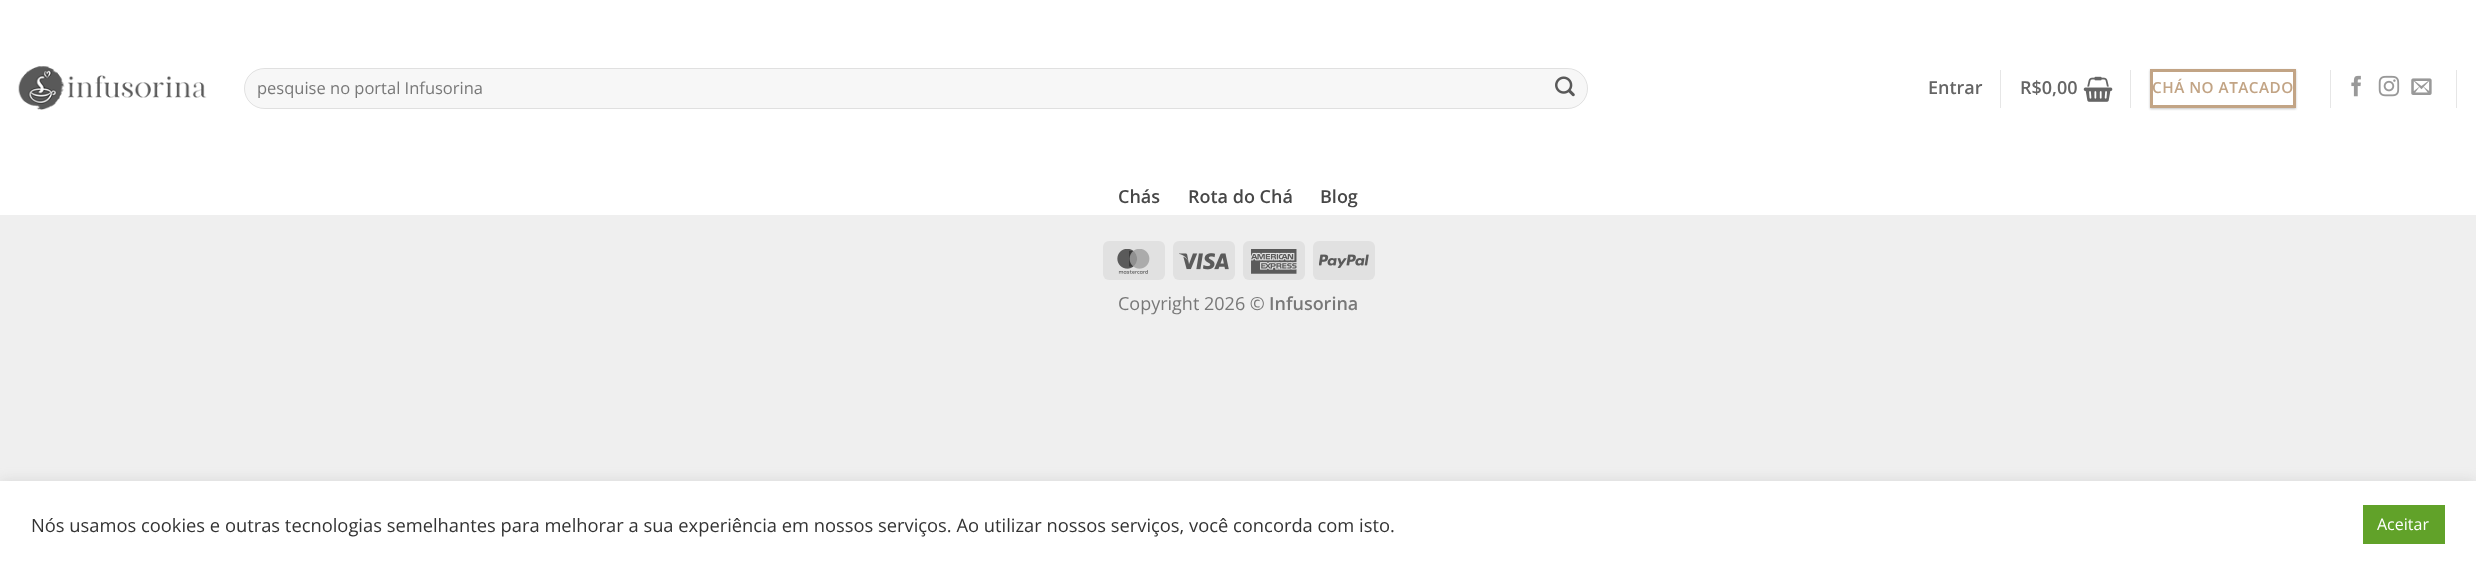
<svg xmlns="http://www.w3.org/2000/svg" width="2476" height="567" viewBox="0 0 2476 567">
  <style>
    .t1 { font: 16.5px Open Sans; fill: #787878; }
    .t2 { font: 600 18px Open Sans; fill: #656565; }
    .t3 { font: 600 15.25px Open Sans; letter-spacing: 0.5px; fill: #c2a485; }
    .t4 { font: 600 18px Open Sans; fill: #474747; }
    .t5 { font: 18px Open Sans; fill: #787878; }
    .t6 { font: 600 18px Open Sans; fill: #787878; }
    .t7 { font: 18.33px Open Sans; fill: #333; }
    .t8 { font: 16px Open Sans; fill: #fff; }
  </style>
  <defs>
    <clipPath id="clip1"><path d="M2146 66H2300V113H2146ZM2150 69H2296V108H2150Z" clip-rule="evenodd"/></clipPath>
  </defs>
  <rect width="100%" height="100%" fill="#efefef"/>
  <rect x="0" y="0" width="2476" height="215" fill="#fff"/>
  <image x="18" y="66" width="189" height="44" href="images/1.png"/>
  <rect x="244" y="68" width="1344" height="41" rx="20.5" fill="#f7f7f7"/>
  <rect x="244.5" y="68.5" width="1343" height="40" rx="20" fill="none" stroke="#00000017"/>
  <text x="257" y="94" class="t1">pesquise no portal Infusorina</text>
  <image x="1555" y="76" width="20" height="21" href="images/2.png"/>
  <text x="1928" y="94" class="t2">Entrar</text>
  <rect x="2000" y="70" width="1" height="38" fill="#e6e6e6"/>
  <text x="2020" y="94" class="t2">R$0,00</text>
  <image x="2083" y="76" width="30" height="26" href="images/3.png"/>
  <rect x="2130" y="70" width="1" height="38" fill="#e6e6e6"/>
  <g clip-path="url(#clip1)">
    <rect x="2150" y="70" width="146" height="39" fill="#0000003d" filter="blur(1px)"/>
  </g>
  <rect x="2151.5" y="70.5" width="143" height="36" fill="none" stroke="#c2a485" stroke-width="3"/>
  <text x="2152" y="93" class="t3">CHÁ NO ATACADO</text>
  <rect x="2330" y="70" width="1" height="38" fill="#e6e6e6"/>
  <image x="2351" y="75" width="10" height="22" href="images/4.png"/>
  <image x="2378" y="75" width="22" height="22" href="images/5.png"/>
  <image x="2411" y="78" width="21" height="17" href="images/6.png"/>
  <rect x="2456" y="70" width="1" height="38" fill="#e6e6e6"/>
  <text x="1118" y="203" class="t4">Chás</text>
  <text x="1188" y="203" class="t4">Rota do Chá</text>
  <text x="1320" y="203" class="t4">Blog</text>
  <rect x="1103" y="241" width="62" height="39" rx="6" fill="#e1e1e1"/>
  <image x="1117" y="249" width="33" height="25" href="images/7.png"/>
  <rect x="1173" y="241" width="62" height="39" rx="6" fill="#e1e1e1"/>
  <image x="1179" y="253" width="50" height="17" href="images/8.png"/>
  <rect x="1243" y="241" width="62" height="39" rx="6" fill="#e1e1e1"/>
  <image x="1251" y="249" width="46" height="25" href="images/9.png"/>
  <rect x="1313" y="241" width="62" height="39" rx="6" fill="#e1e1e1"/>
  <image x="1319" y="254" width="50" height="14" href="images/10.png"/>
  <text x="1118" y="310" class="t5">Copyright 2026 ©</text>
  <text x="1269" y="310" class="t6">Infusorina</text>
  <rect x="0" y="480" width="2476" height="86" fill="#acabab4d" filter="blur(6px)"/>
  <rect x="0" y="481" width="2476" height="86" fill="#fff"/>
  <text x="31" y="532" class="t7">Nós usamos cookies e outras tecnologias semelhantes para melhorar a sua experiência em nossos serviços. Ao utilizar nossos serviços, você concorda com isto.</text>
  <rect x="2363" y="505" width="82" height="39" fill="#61a229"/>
  <text x="2377" y="530" class="t8">Aceitar</text>
</svg>
